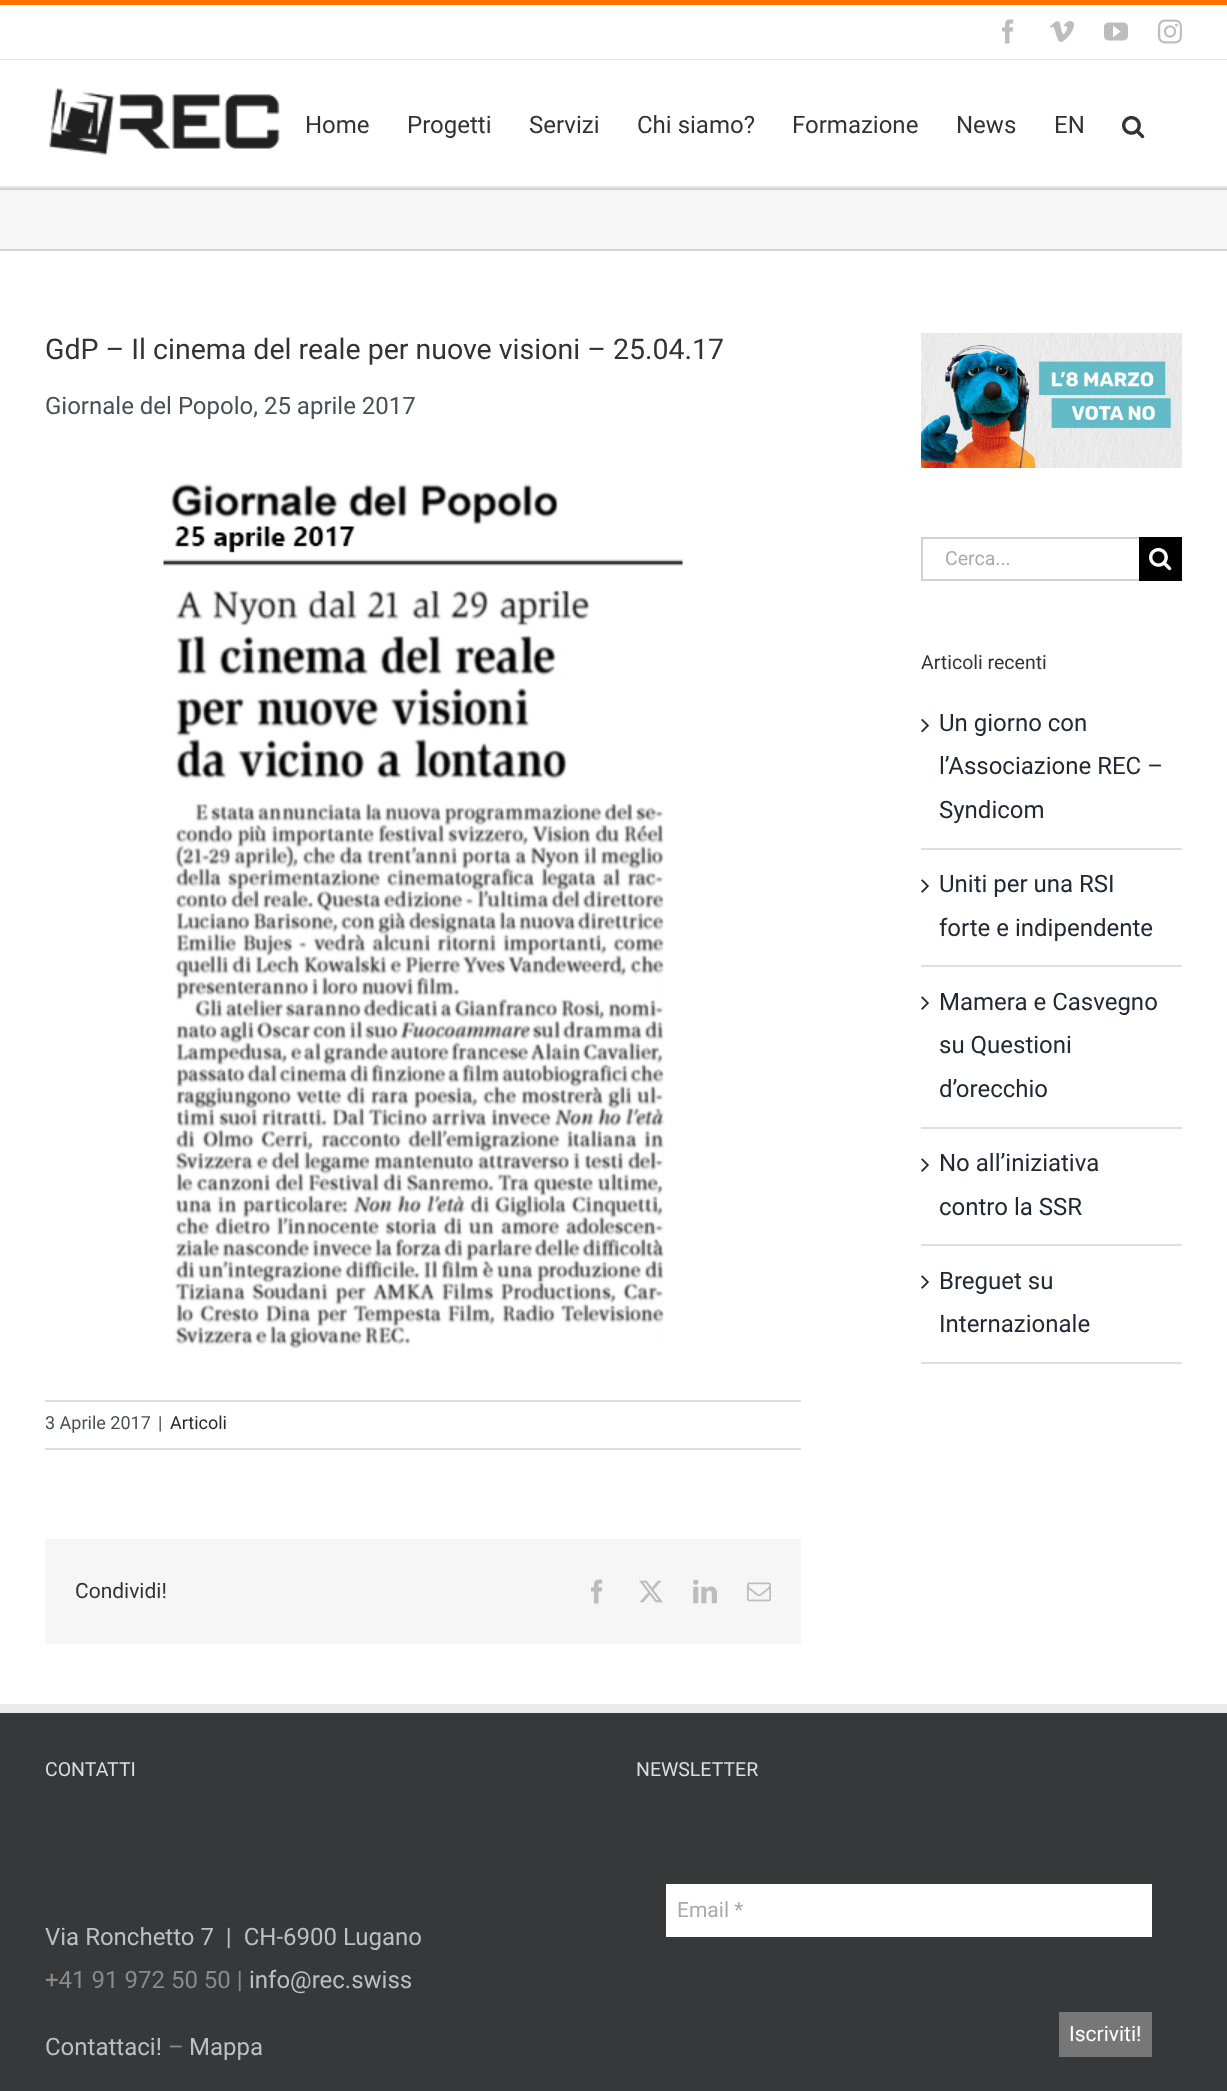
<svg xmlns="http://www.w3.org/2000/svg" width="1227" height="2091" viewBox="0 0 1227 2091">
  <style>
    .t1 { font: 24px Roboto; fill: #333; }
    .t2 { font: 28.5px Roboto; fill: #333; }
    .t3 { font: 24px Roboto; fill: #4a4e57; }
    .t4 { font: 18px Roboto; fill: #4a4e57; }
    .t5 { font: 18px Roboto; fill: #212934; }
    .t6 { font: 21px Roboto; fill: #333; }
    .t7 { font: 19.5px Roboto; fill: #aaa9a9; }
    .t8 { font: 19.5px Roboto; fill: #333; }
    .t9 { font: 24px Roboto; fill: #212934; }
    .t10 { font: 19.5px Roboto; fill: #ddd; }
    .t11 { font: 24px Roboto; fill: #bfbfbf; }
    .t12 { font: 24px Roboto; fill: #8c8989; }
    .t13 { font: 21px Roboto; fill: #aaa9a9; }
    .t14 { font: 21px Roboto; fill: #fff; }
  </style>
  <rect width="100%" height="100%" fill="#fff"/>
  <rect x="0" y="0" width="1227" height="5" fill="#ff7200"/>
  <rect x="0" y="59" width="1227" height="1" fill="#e5e5e5"/>
  <image x="1002" y="19" width="12" height="25" href="images/1.png"/>
  <image x="1050" y="21" width="24" height="21" href="images/2.png"/>
  <image x="1104" y="22" width="24" height="19" href="images/3.png"/>
  <image x="1158" y="19" width="24" height="25" href="images/4.png"/>
  <rect x="0" y="186" width="1227" height="2" fill="#e5e5e5"/>
  <image x="49" y="88" width="231" height="67" href="images/5.png"/>
  <text x="305" y="133" class="t1">Home</text>
  <text x="407" y="133" class="t1">Progetti</text>
  <text x="529" y="133" class="t1">Servizi</text>
  <text x="637" y="133" class="t1">Chi siamo?</text>
  <text x="792" y="133" class="t1">Formazione</text>
  <text x="956" y="133" class="t1">News</text>
  <text x="1054" y="133" class="t1">EN</text>
  <image x="1122" y="115" width="23" height="24" href="images/6.png"/>
  <rect x="0" y="190" width="1227" height="59" fill="#f6f6f6"/>
  <rect x="0" y="188" width="1227" height="2" fill="#d2d3d4"/>
  <rect x="0" y="249" width="1227" height="2" fill="#d2d3d4"/>
  <text x="45" y="359" class="t2">GdP – Il cinema del reale per nuove visioni – 25.04.17</text>
  <text x="45" y="414" class="t3">Giornale del Popolo, 25 aprile 2017</text>
  <image x="163" y="483" width="520" height="866" href="images/7.png"/>
  <rect x="45" y="1400" width="756" height="2" fill="#e0dede"/>
  <rect x="45" y="1448" width="756" height="2" fill="#e0dede"/>
  <text x="45" y="1429" class="t4">3 Aprile 2017</text>
  <text x="158" y="1429" class="t4">|</text>
  <text x="170" y="1429" class="t5">Articoli</text>
  <rect x="45" y="1539" width="756" height="105" fill="#f6f6f6"/>
  <text x="75" y="1598" class="t6">Condividi!</text>
  <image x="591" y="1579" width="12" height="25" href="images/8.png"/>
  <image x="639" y="1580" width="24" height="23" href="images/9.png"/>
  <image x="693" y="1579" width="24" height="25" href="images/10.png"/>
  <image x="747" y="1582" width="24" height="20" href="images/11.png"/>
  <image x="921" y="333" width="261" height="135" href="images/12.png"/>
  <rect x="921" y="537" width="218" height="2" fill="#d2d2d2"/>
  <rect x="921" y="579" width="218" height="2" fill="#d2d2d2"/>
  <rect x="921" y="537" width="2" height="44" fill="#d2d2d2"/>
  <text x="945" y="565" class="t7">Cerca...</text>
  <rect x="1139" y="537" width="43" height="44" fill="#000"/>
  <image x="1149" y="547" width="23" height="24" href="images/13.png"/>
  <text x="921" y="669" class="t8">Articoli recenti</text>
  <rect x="921" y="848" width="261" height="2" fill="#e0dede"/>
  <image x="921" y="718" width="8" height="15" href="images/14.png"/>
  <text x="939" y="731" class="t9">Un giorno con</text>
  <text x="939" y="774" class="t9">l’Associazione REC –</text>
  <text x="939" y="818" class="t9">Syndicom</text>
  <rect x="921" y="965" width="261" height="2" fill="#e0dede"/>
  <image x="921" y="879" width="8" height="14" href="images/15.png"/>
  <text x="939" y="892" class="t9">Uniti per una RSI</text>
  <text x="939" y="936" class="t9">forte e indipendente</text>
  <rect x="921" y="1127" width="261" height="2" fill="#e0dede"/>
  <image x="921" y="996" width="8" height="14" href="images/15.png"/>
  <text x="939" y="1010" class="t9">Mamera e Casvegno</text>
  <text x="939" y="1053" class="t9">su Questioni</text>
  <text x="939" y="1097" class="t9">d’orecchio</text>
  <rect x="921" y="1244" width="261" height="2" fill="#e0dede"/>
  <image x="921" y="1158" width="8" height="14" href="images/15.png"/>
  <text x="939" y="1171" class="t9">No all’iniziativa</text>
  <text x="939" y="1215" class="t9">contro la SSR</text>
  <rect x="921" y="1362" width="261" height="2" fill="#e0dede"/>
  <image x="921" y="1275" width="8" height="14" href="images/15.png"/>
  <text x="939" y="1289" class="t9">Breguet su</text>
  <text x="939" y="1332" class="t9">Internazionale</text>
  <rect x="0" y="1713" width="1227" height="378" fill="#363839"/>
  <rect x="0" y="1704" width="1227" height="9" fill="#e9eaee"/>
  <text x="45" y="1776" class="t10">CONTATTI</text>
  <text x="45" y="1945" class="t11" xml:space="preserve">Via Ronchetto 7  |  CH-6900 Lugano</text>
  <text x="45" y="1988" class="t12">+41 91 972 50 50 |</text>
  <text x="249" y="1988" class="t11">info@rec.swiss</text>
  <text x="45" y="2055" class="t11">Contattaci!</text>
  <text x="168" y="2055" class="t12">–</text>
  <text x="189" y="2055" class="t11">Mappa</text>
  <text x="636" y="1776" class="t10">NEWSLETTER</text>
  <rect x="666" y="1884" width="486" height="53" fill="#fff"/>
  <text x="677" y="1917" class="t13">Email *</text>
  <rect x="1059" y="2012" width="93" height="45" fill="#777"/>
  <text x="1069" y="2041" class="t14">Iscriviti!</text>
</svg>
